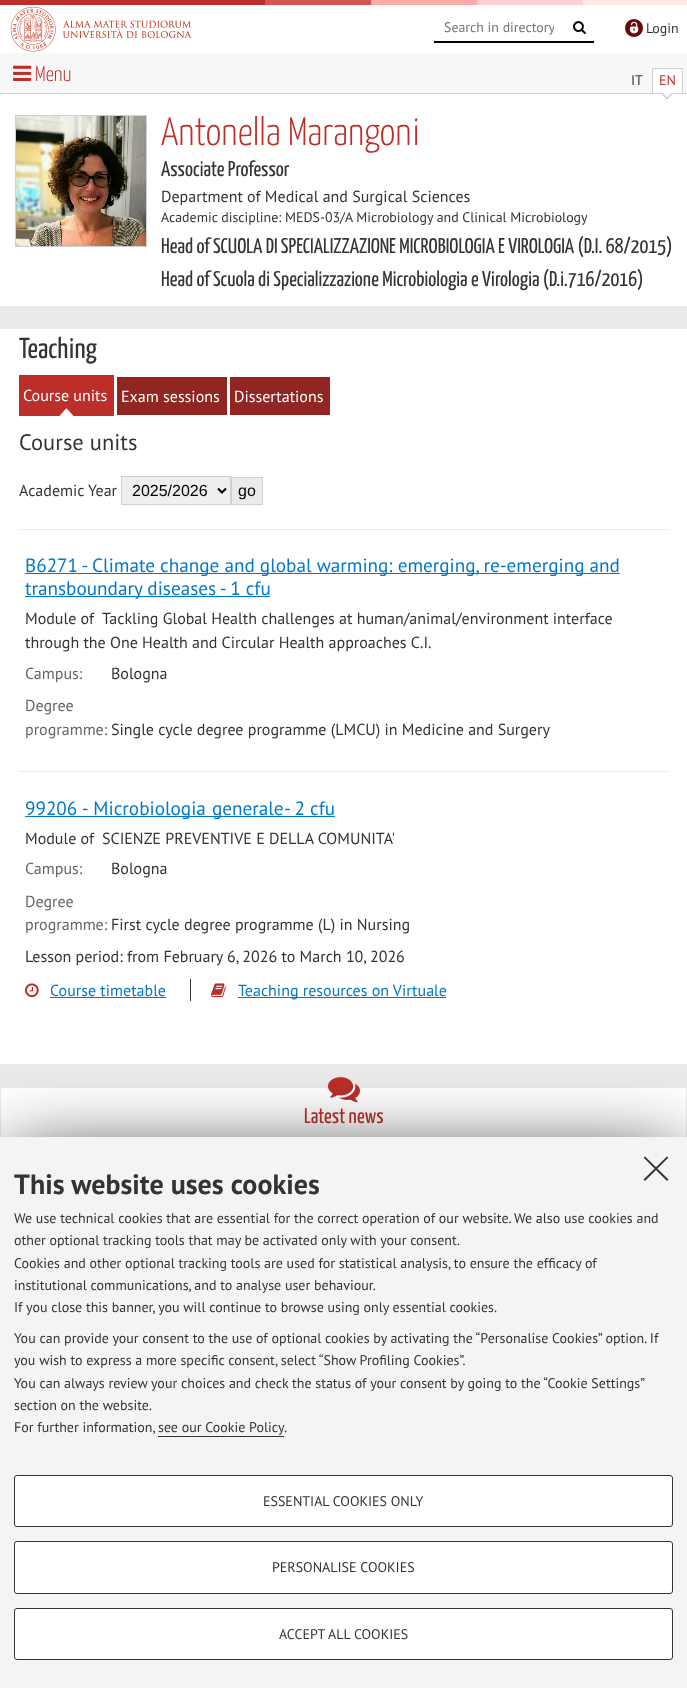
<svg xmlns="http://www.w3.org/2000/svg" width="687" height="1688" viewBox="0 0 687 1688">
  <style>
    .t1 { font: 13.9px PT Sans; fill: #757575; }
    .t2 { font: 13.9px PT Sans; fill: #333; }
    .t3 { font: 300 21.3px Yanone Kaffeesatz; fill: #bb2e29; }
    .t4 { font: 13.9px PT Sans; fill: #bb2e29; }
    .t5 { font: 300 39.5px Yanone Kaffeesatz; fill: #bb2e29; }
    .t6 { font: 21.3px Yanone Kaffeesatz; fill: #333; }
    .t7 { font: 16px PT Sans; fill: #333; }
    .t8 { font: 29px Yanone Kaffeesatz; fill: #333; }
    .t9 { font: 16px PT Sans; fill: #fff; }
    .t10 { font: 22.5px PT Sans; fill: #333; }
    .t11 { font: 16px Liberation Sans; fill: #000; }
    .t12 { font: 19.2px PT Sans; fill: #07c; }
    .t13 { font: 16px PT Sans; fill: #666; }
    .t14 { font: 16px PT Sans; fill: #07c; }
    .t15 { font: 21.3px Yanone Kaffeesatz; fill: #bb2e29; }
    .t16 { font: bold 28px PT Sans; fill: #333; }
    .t17 { font: 14px PT Sans; fill: #333; }
  </style>
  <defs>
    <clipPath id="clip1"><rect x="444" y="18" width="110" height="18"/></clipPath>
  </defs>
  <rect width="100%" height="100%" fill="#eaeaea"/>
  <image x="0" y="0" width="687" height="5" href="images/1.png"/>
  <rect x="0" y="5" width="687" height="48" fill="#fff"/>
  <image x="10" y="6" width="182" height="46" href="images/2.png"/>
  <rect x="434" y="41" width="160" height="2" fill="#000"/>
  <g clip-path="url(#clip1)">
    <text x="444" y="32" class="t1">Search in directory</text>
  </g>
  <image x="573" y="21" width="13" height="13" href="images/3.png"/>
  <image x="625" y="19" width="18" height="18" href="images/4.png"/>
  <text x="646" y="33" class="t2">Login</text>
  <rect x="0" y="53" width="687" height="40" fill="#f7f7f7"/>
  <rect x="0" y="93" width="687" height="1" fill="#d0d0d0"/>
  <image x="13" y="65" width="19" height="16" href="images/5.png"/>
  <text x="35" y="81" class="t3">Menu</text>
  <text x="631" y="85" class="t2">IT</text>
  <rect x="653" y="69" width="29" height="24" fill="#fff"/>
  <rect x="652" y="68" width="31" height="1" fill="#d0d0d0"/>
  <rect x="682" y="68" width="1" height="25" fill="#d0d0d0"/>
  <rect x="652" y="68" width="1" height="25" fill="#d0d0d0"/>
  <text x="659" y="85" class="t4">EN</text>
  <rect x="0" y="94" width="687" height="212" fill="#fff"/>
  <image x="662" y="93" width="10" height="6" href="images/6.png"/>
  <rect x="15.5" y="115.5" width="131" height="131" fill="none" stroke="#d0d0d0"/>
  <image x="16" y="116" width="130" height="130" href="images/7.png"/>
  <text x="161" y="145" class="t5">Antonella Marangoni</text>
  <text x="161" y="176" class="t6">Associate Professor</text>
  <text x="161" y="202" class="t7">Department of Medical and Surgical Sciences</text>
  <text x="161" y="222" class="t2">Academic discipline: MEDS-03/A Microbiology and Clinical Microbiology</text>
  <text x="161" y="253" class="t6">Head of SCUOLA DI SPECIALIZZAZIONE MICROBIOLOGIA E VIROLOGIA (D.I. 68/2015)</text>
  <text x="161" y="286" class="t6">Head of Scuola di Specializzazione Microbiologia e Virologia (D.i.716/2016)</text>
  <rect x="0" y="329" width="687" height="735" fill="#fff"/>
  <text x="19" y="358" class="t8">Teaching</text>
  <rect x="19" y="375" width="95" height="41" fill="#bb2e29"/>
  <image x="59" y="408" width="15" height="8" href="images/8.png"/>
  <text x="23" y="401" class="t9">Course units</text>
  <rect x="117" y="377" width="110" height="38" fill="#902521"/>
  <text x="121" y="402" class="t9">Exam sessions</text>
  <rect x="230" y="377" width="100" height="38" fill="#902521"/>
  <text x="234" y="402" class="t9">Dissertations</text>
  <text x="19" y="450" class="t10">Course units</text>
  <text x="19" y="496" class="t7">Academic Year</text>
  <rect x="121.5" y="476.5" width="109" height="28" fill="#efefef" stroke="#d0d0d0"/>
  <path d="M218 488.5L222 492.5L226 488.5" fill="none" stroke="#000" stroke-width="2"/>
  <text x="132" y="496" class="t11">2025/2026</text>
  <rect x="231.5" y="477.5" width="31" height="27" fill="#eaeaea" stroke="#d0d0d0"/>
  <text x="238" y="496" class="t11">go</text>
  <rect x="19" y="529" width="649" height="1" fill="#eaeaea"/>
  <rect x="25" y="573" width="595" height="1" fill="#07c"/>
  <text x="25" y="572" class="t12">B6271 - Climate change and global warming: emerging, re-emerging and</text>
  <rect x="25" y="596" width="245" height="1" fill="#07c"/>
  <text x="25" y="595" class="t12">transboundary diseases - 1 cfu</text>
  <text x="25" y="624" class="t7" xml:space="preserve">Module of  Tackling Global Health challenges at human/animal/environment interface</text>
  <text x="25" y="648" class="t7">through the One Health and Circular Health approaches C.I.</text>
  <text x="25" y="679" class="t13">Campus:</text>
  <text x="111" y="679" class="t7">Bologna</text>
  <text x="25" y="711" class="t13">Degree</text>
  <text x="25" y="735" class="t13">programme:</text>
  <text x="111" y="735" class="t7">Single cycle degree programme (LMCU) in Medicine and Surgery</text>
  <rect x="19" y="771" width="649" height="1" fill="#eaeaea"/>
  <rect x="25" y="816" width="310" height="1" fill="#07c"/>
  <text x="25" y="815" word-spacing="1" class="t12">99206 - Microbiologia generale</text>
  <text x="284" y="815" class="t12">- 2 cfu</text>
  <text x="25" y="844" class="t7">Module of</text>
  <text x="102" y="844" class="t7">SCIENZE PREVENTIVE E DELLA COMUNITA'</text>
  <text x="25" y="874" class="t13">Campus:</text>
  <text x="111" y="874" class="t7">Bologna</text>
  <text x="25" y="907" class="t13">Degree</text>
  <text x="25" y="930" class="t13">programme:</text>
  <text x="111" y="930" class="t7">First cycle degree programme (L) in Nursing</text>
  <text x="25" y="962" class="t7">Lesson period: from February 6, 2026 to March 10, 2026</text>
  <image x="25" y="983" width="14" height="15" href="images/9.png"/>
  <text x="50" y="996" class="t14">Course timetable</text>
  <rect x="50" y="997" width="116" height="1" fill="#07c"/>
  <rect x="190" y="979" width="1" height="22" fill="#333"/>
  <image x="211" y="983" width="15" height="15" href="images/10.png"/>
  <rect x="238" y="997" width="208" height="1" fill="#07c"/>
  <text x="238" y="996" class="t14">Teaching resources on Virtuale</text>
  <rect x="1" y="1088" width="685" height="49" fill="#fff"/>
  <image x="328" y="1077" width="32" height="26" href="images/11.png"/>
  <text x="304" y="1123" class="t15">Latest news</text>
  <rect x="8" y="1161" width="671" height="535" fill="#000" filter="blur(40px)"/>
  <rect x="0" y="1137" width="687" height="551" fill="#f4f4f4"/>
  <path d="M667 1156.5L668.5 1157.5L645 1181L643.5 1179.5Z" fill="#333"/>
  <path d="M643.5 1157.5L645 1156.5L668.5 1179.5L667 1181Z" fill="#333"/>
  <text x="14" y="1194" class="t16">This website uses cookies</text>
  <text x="14" y="1223" class="t17">We use technical cookies that are essential for the correct operation of our website. We also use cookies and</text>
  <text x="14" y="1245" class="t17">other optional tracking tools that may be activated only with your consent.</text>
  <text x="14" y="1268" class="t17">Cookies and other optional tracking tools are used for statistical analysis, to ensure the efficacy of</text>
  <text x="14" y="1290" class="t17">institutional communications, and to analyse user behaviour.</text>
  <text x="14" y="1312" class="t17">If you close this banner, you will continue to browse using only essential cookies.</text>
  <text x="14" y="1343" class="t17">You can provide your consent to the use of optional cookies by activating the “Personalise Cookies” option. If</text>
  <text x="14" y="1365" class="t17">you wish to express a more specific consent, select “Show Profiling Cookies”.</text>
  <text x="14" y="1388" class="t17">You can always review your choices and check the status of your consent by going to the “Cookie Settings”</text>
  <text x="14" y="1410" class="t17">section on the website.</text>
  <text x="14" y="1432" class="t17">For further information,</text>
  <text x="158" y="1432" class="t17">see our Cookie Policy</text>
  <rect x="158" y="1436" width="126" height="1" fill="#333"/>
  <text x="284" y="1432" class="t17">.</text>
  <rect x="14.5" y="1475.5" width="658" height="51" rx="2.5" fill="#fff" stroke="#333"/>
  <text x="263" y="1506" class="t17">ESSENTIAL COOKIES ONLY</text>
  <rect x="14.5" y="1541.5" width="658" height="52" rx="2.5" fill="#fff" stroke="#333"/>
  <text x="272" y="1572" class="t17">PERSONALISE COOKIES</text>
  <rect x="14.5" y="1608.5" width="658" height="51" rx="2.5" fill="#fff" stroke="#333"/>
  <text x="279" y="1639" class="t17">ACCEPT ALL COOKIES</text>
</svg>
